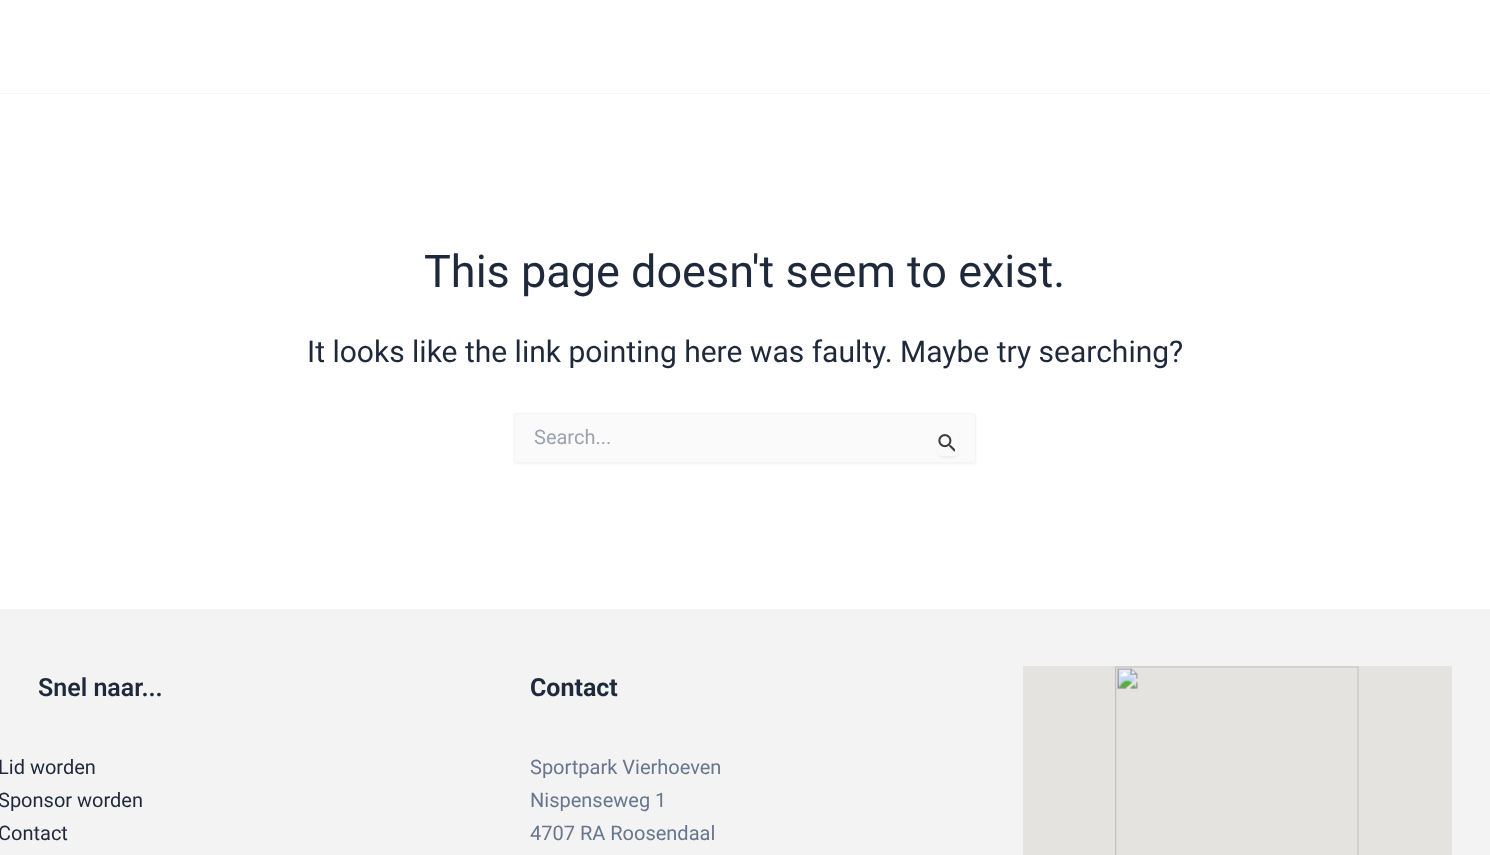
<svg xmlns="http://www.w3.org/2000/svg" width="1490" height="855" viewBox="0 0 1490 855">
  <style>
    .t1 { font: 45px Roboto; fill: #1e293b; }
    .t2 { font: 30px Roboto; fill: #1e293b; }
    .t3 { font: 20px Roboto; fill: #9ca3af; }
    .t4 { font: 600 25px Roboto; fill: #1e293b; }
    .t5 { font: 20px Roboto; fill: #1e293b; }
    .t6 { font: bold 25px Roboto; fill: #1e293b; }
    .t7 { font: 20px Roboto; fill: #67768e; }
  </style>
  <defs>
    <clipPath id="clip1"><path d="M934 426H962V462H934ZM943 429H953C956 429 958 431 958 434V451C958 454 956 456 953 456H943C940 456 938 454 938 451V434C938 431 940 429 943 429Z" clip-rule="evenodd"/></clipPath>
  </defs>
  <rect width="100%" height="100%" fill="#fff"/>
  <rect x="0" y="93" width="1490" height="1" fill="#f2f5f7"/>
  <text x="424" y="287" class="t1">This page doesn't seem to exist.</text>
  <text x="307" y="362" class="t2">It looks like the link pointing here was faulty. Maybe try searching?</text>
  <rect x="514" y="414" width="462" height="50" rx="2.5" fill="#0000000d" filter="blur(1px)"/>
  <rect x="514.5" y="413.5" width="461" height="49" rx="2" fill="#fafafa" stroke="#f2f5f7"/>
  <text x="534" y="444" class="t3">Search...</text>
  <g clip-path="url(#clip1)">
    <rect x="938" y="430" width="20" height="28" rx="5" fill="#0000000d" filter="blur(1px)"/>
  </g>
  <image x="938" y="434" width="17" height="18" href="images/1.png"/>
  <rect x="0" y="610" width="1490" height="245" fill="#f3f3f3"/>
  <rect x="0" y="609" width="1490" height="1" fill="#f2f5f7"/>
  <text x="38" y="696" class="t4">Snel naar...</text>
  <text x="-2" y="774" class="t5">Lid worden</text>
  <text x="-2" y="807" class="t5">Sponsor worden</text>
  <text x="-2" y="840" class="t5">Contact</text>
  <text x="530" y="696" class="t6">Contact</text>
  <text x="530" y="774" class="t7">Sportpark Vierhoeven</text>
  <text x="530" y="807" class="t7">Nispenseweg 1</text>
  <text x="530" y="840" class="t7">4707 RA Roosendaal</text>
  <image x="1023" y="666" width="429" height="189" href="images/2.png"/>
</svg>
